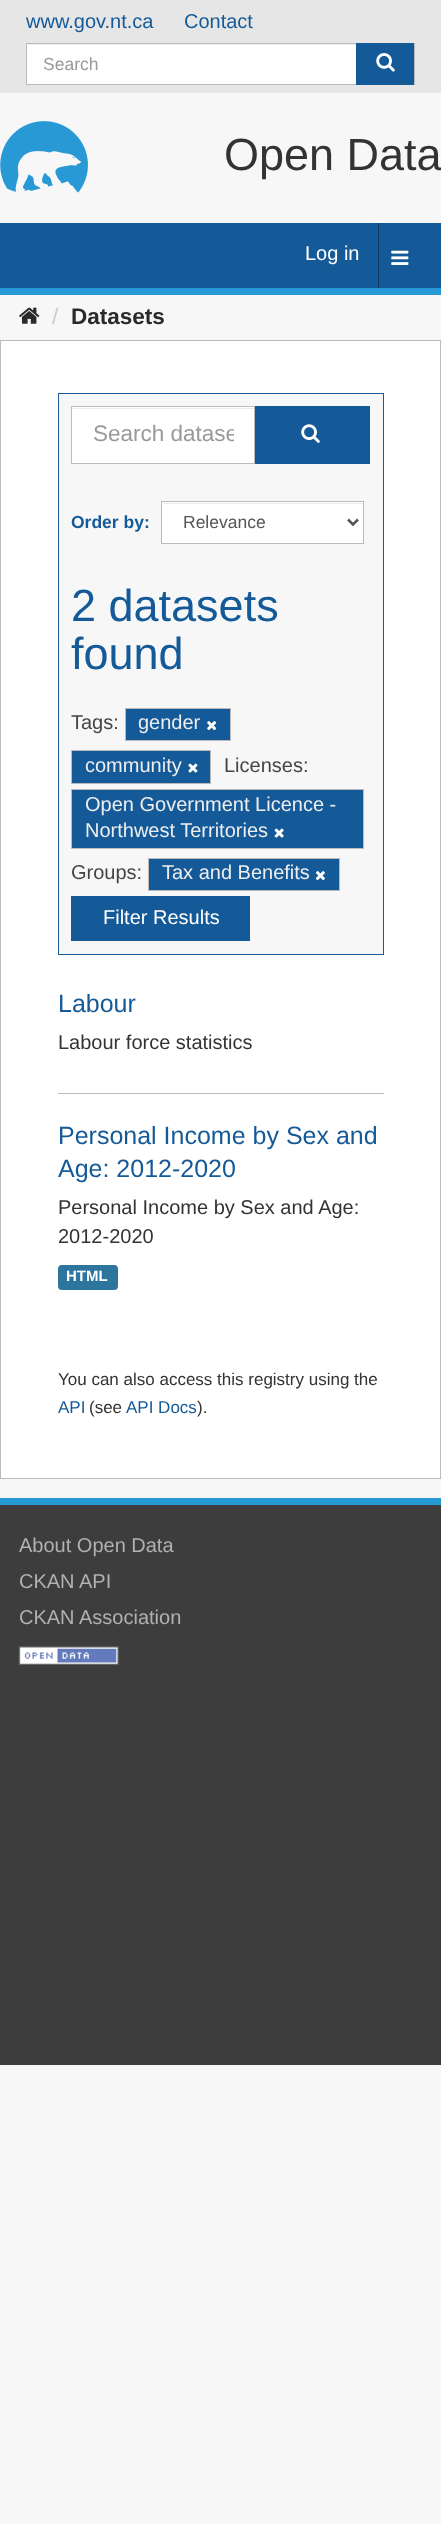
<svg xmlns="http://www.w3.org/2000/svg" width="441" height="2524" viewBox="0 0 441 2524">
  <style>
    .t1 { font: 20px Liberation Sans; fill: #155a98; }
    .t2 { font: 17.5px Liberation Sans; fill: #999; }
    .t3 { font: 45px Liberation Sans; fill: #333; }
    .t4 { font: 20px Liberation Sans; fill: #fff; }
    .t5 { font: 22.5px Liberation Sans; fill: #ccc; }
    .t6 { font: bold 22.5px Liberation Sans; fill: #2a2a2a; }
    .t7 { font: 22.5px Liberation Sans; fill: #999; }
    .t8 { font: bold 17.5px Liberation Sans; fill: #155a98; }
    .t9 { font: 17.5px Liberation Sans; fill: #555; }
    .t10 { font: 45px Liberation Sans; fill: #155a98; }
    .t11 { font: 20px Liberation Sans; fill: #444; }
    .t12 { font: 20px Liberation Sans; fill: #eee; }
    .t13 { font: 25px Liberation Sans; fill: #155a98; }
    .t14 { font: 20px Liberation Sans; fill: #333; }
    .t15 { font: bold 15px Liberation Sans; fill: #fff; }
    .t16 { font: 17px Liberation Sans; fill: #333; }
    .t17 { font: 17px Liberation Sans; fill: #155a98; }
    .t18 { font: 20px Liberation Sans; fill: #b1b1b1; }
  </style>
  <defs>
    <clipPath id="clip1"><rect x="93" y="421" width="141" height="27"/></clipPath>
  </defs>
  <rect width="100%" height="100%" fill="#f7f7f7"/>
  <rect x="0" y="0" width="441" height="93" fill="#e6e6e6"/>
  <text x="26" y="28" class="t1">www.gov.nt.ca</text>
  <text x="184" y="28" class="t1">Contact</text>
  <rect x="27" y="44" width="329" height="40" fill="#fff"/>
  <rect x="28" y="44" width="328" height="1" fill="#ececec"/>
  <rect x="26.5" y="43.5" width="388" height="41" fill="none" stroke="#bbb"/>
  <text x="43" y="70" class="t2">Search</text>
  <rect x="356" y="43" width="58" height="42" fill="#155a98"/>
  <image x="376" y="53" width="19" height="19" href="images/1.png"/>
  <image x="0" y="121" width="88" height="72" href="images/2.png"/>
  <text x="224" y="170" class="t3">Open Data</text>
  <rect x="0" y="223" width="441" height="65" fill="#155a98"/>
  <rect x="0" y="288" width="441" height="7" fill="#2699d5"/>
  <rect x="378" y="223" width="1" height="65" fill="#0d3b65"/>
  <text x="305" y="260" class="t4">Log in</text>
  <image x="391" y="250" width="18" height="15" href="images/3.png"/>
  <image x="19" y="307" width="21" height="17" href="images/4.png"/>
  <text x="52" y="324" class="t5">/</text>
  <text x="71" y="324" class="t6">Datasets</text>
  <rect x="0.5" y="340.5" width="440" height="1138" fill="#fff" stroke="#bbb"/>
  <rect x="58.5" y="393.5" width="325" height="561" fill="#f7f7f7" stroke="#1a5b96"/>
  <rect x="72" y="407" width="182" height="56" fill="#fff"/>
  <rect x="73" y="408" width="181" height="1" fill="#ececec"/>
  <rect x="71.5" y="406.5" width="183" height="57" fill="none" stroke="#bbb"/>
  <g clip-path="url(#clip1)">
    <text x="93" y="441" class="t7">Search datase</text>
  </g>
  <rect x="255" y="406" width="115" height="58" fill="#155a98"/>
  <image x="301" y="424" width="19" height="19" href="images/5.png"/>
  <text x="71" y="528" class="t8">Order by:</text>
  <rect x="162" y="502" width="201" height="41" fill="#fff"/>
  <rect x="163" y="503" width="200" height="1" fill="#ececec"/>
  <rect x="161.5" y="501.5" width="202" height="42" fill="none" stroke="#bbb"/>
  <path d="M348 519.5L353 524.5L358 519.5" fill="none" stroke="#555" stroke-width="2.5"/>
  <text x="183" y="528" class="t9">Relevance</text>
  <text x="71" y="621" class="t10">2 datasets</text>
  <text x="71" y="669" class="t10">found</text>
  <text x="71" y="729" class="t11">Tags:</text>
  <rect x="125.5" y="708.5" width="105" height="32" fill="#155a98" stroke="#bbb"/>
  <text x="138" y="729" class="t12">gender</text>
  <image x="207" y="721" width="10" height="10" href="images/6.png"/>
  <rect x="71.5" y="750.5" width="139" height="33" fill="#155a98" stroke="#bbb"/>
  <text x="85" y="772" class="t12">community</text>
  <image x="188" y="763" width="10" height="10" href="images/7.png"/>
  <text x="224" y="772" class="t11">Licenses:</text>
  <rect x="71.5" y="789.5" width="292" height="59" fill="#155a98" stroke="#bbb"/>
  <text x="85" y="811" class="t12">Open Government Licence -</text>
  <text x="85" y="837" class="t12">Northwest Territories</text>
  <image x="274" y="828" width="10" height="10" href="images/8.png"/>
  <text x="71" y="879" class="t11">Groups:</text>
  <rect x="148.5" y="858.5" width="191" height="32" fill="#155a98" stroke="#bbb"/>
  <text x="162" y="879" class="t12">Tax and Benefits</text>
  <image x="315" y="871" width="10" height="10" href="images/9.png"/>
  <rect x="71" y="896" width="179" height="45" fill="#155a98"/>
  <text x="103" y="924" class="t4">Filter Results</text>
  <rect x="58" y="1093" width="326" height="1" fill="#bbb"/>
  <text x="58" y="1012" class="t13">Labour</text>
  <text x="58" y="1049" class="t14">Labour force statistics</text>
  <text x="58" y="1144" class="t13">Personal Income by Sex and</text>
  <text x="58" y="1177" class="t13">Age: 2012-2020</text>
  <text x="58" y="1214" class="t14">Personal Income by Sex and Age:</text>
  <text x="58" y="1243" class="t14">2012-2020</text>
  <rect x="58" y="1265" width="60" height="25" rx="4" fill="#2e759e"/>
  <text x="66" y="1281" class="t15">HTML</text>
  <text x="58" y="1385" class="t16">You can also access this registry using the</text>
  <text x="58" y="1413" class="t17">API</text>
  <text x="89" y="1413" class="t16">(see</text>
  <text x="126" y="1413" class="t17">API Docs</text>
  <text x="197" y="1413" class="t16">).</text>
  <rect x="0" y="1505" width="441" height="560" fill="#3d3d3d"/>
  <rect x="0" y="1498" width="441" height="7" fill="#2699d5"/>
  <text x="19" y="1552" class="t18">About Open Data</text>
  <text x="19" y="1588" class="t18">CKAN API</text>
  <text x="19" y="1624" class="t18">CKAN Association</text>
  <image x="18" y="1646" width="101" height="19" href="images/10.png"/>
</svg>
